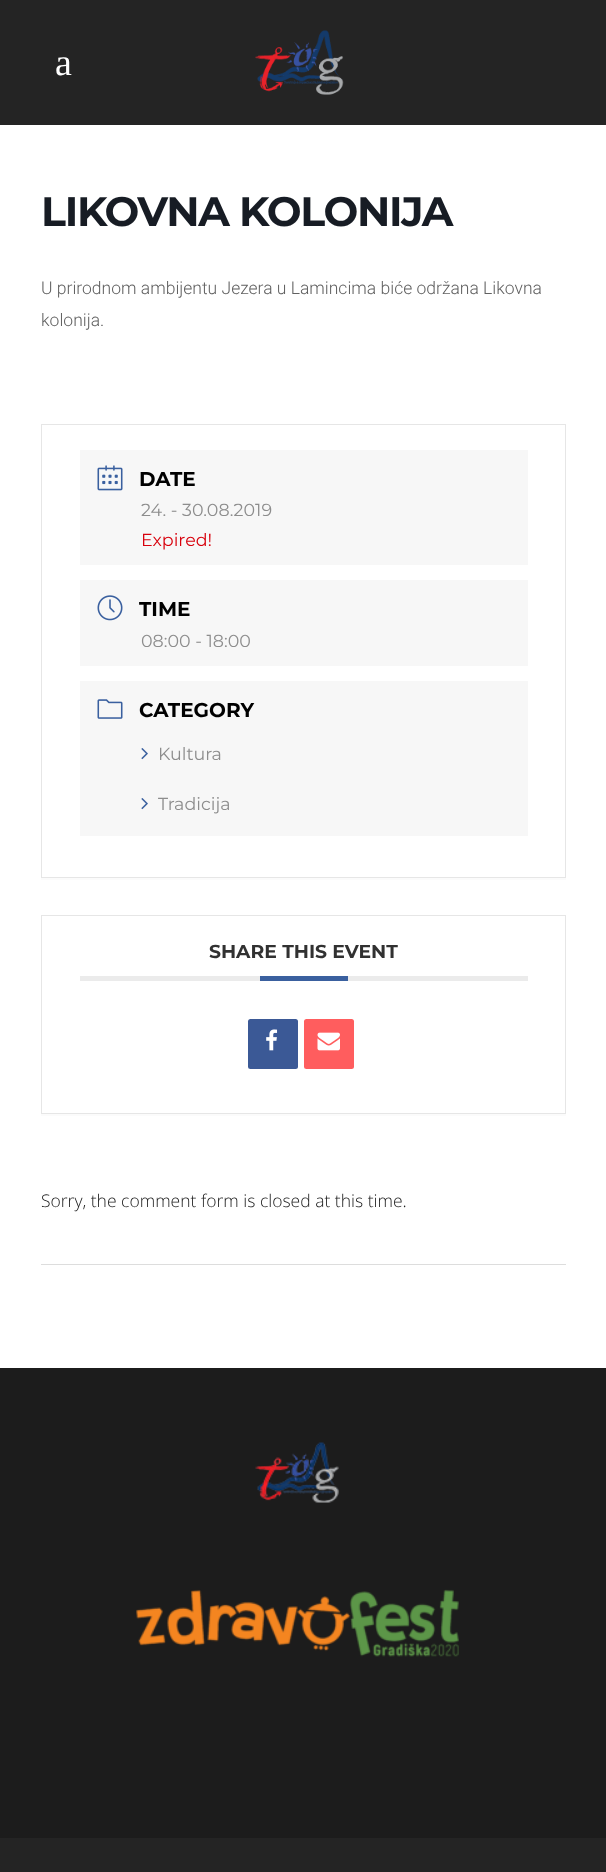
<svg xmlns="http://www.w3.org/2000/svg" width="606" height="1872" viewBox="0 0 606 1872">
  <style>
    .t1 { font: 38px Liberation Serif; fill: #fff; }
    .t2 { font: bold 41.25px Montserrat; letter-spacing: -1.25px; fill: #171c24; }
    .t3 { font: 300 17.5px Roboto; fill: #616161; }
    .t4 { font: bold 20px Montserrat; fill: #000; }
    .t5 { font: 17.5px Montserrat; fill: #8d8d8d; }
    .t6 { font: 17.5px Montserrat; fill: #d8000c; }
    .t7 { font: bold 18.75px Montserrat; fill: #313131; }
    .t8 { font: 300 17.5px Open Sans; fill: #222; }
  </style>
  <rect width="100%" height="100%" fill="#fff"/>
  <rect x="0" y="0" width="606" height="125" fill="#242424"/>
  <text x="55" y="75" class="t1">a</text>
  <image x="255" y="30" width="89" height="65" href="images/1.png"/>
  <text x="41" y="226" class="t2">LIKOVNA KOLONIJA</text>
  <text x="41" y="294" class="t3">U prirodnom ambijentu Jezera u Lamincima biće održana Likovna</text>
  <text x="41" y="326" class="t3">kolonija.</text>
  <path d="M41 426V880H566V878H41Z" fill="#fbfbfb"/>
  <rect x="41.5" y="424.5" width="524" height="453" fill="none" stroke="#e6e6e6"/>
  <rect x="80" y="450" width="448" height="115" fill="#f7f7f7"/>
  <image x="97" y="465" width="26" height="26" href="images/2.png"/>
  <text x="139" y="486" class="t4">DATE</text>
  <text x="141" y="516" class="t5">24. - 30.08.2019</text>
  <text x="141" y="546" class="t6">Expired!</text>
  <rect x="80" y="580" width="448" height="86" fill="#f7f7f7"/>
  <image x="97" y="595" width="26" height="26" href="images/3.png"/>
  <text x="139" y="616" class="t4">TIME</text>
  <text x="141" y="647" class="t5">08:00 - 18:00</text>
  <rect x="80" y="681" width="448" height="155" fill="#f7f7f7"/>
  <image x="97" y="699" width="26" height="20" href="images/4.png"/>
  <text x="139" y="717" class="t4">CATEGORY</text>
  <image x="141" y="748" width="7" height="12" href="images/5.png"/>
  <text x="158" y="760" class="t5">Kultura</text>
  <image x="141" y="798" width="7" height="12" href="images/5.png"/>
  <text x="158" y="810" class="t5">Tradicija</text>
  <path d="M41 918V1116H566V1114H41Z" fill="#fbfbfb"/>
  <rect x="41.5" y="915.5" width="524" height="198" fill="none" stroke="#e6e6e6"/>
  <rect x="80" y="976" width="448" height="5" fill="#ebebeb"/>
  <text x="209" y="958" class="t7">SHARE THIS EVENT</text>
  <rect x="260" y="976" width="88" height="5" fill="#3a609f"/>
  <rect x="248" y="1019" width="50" height="50" rx="2.5" fill="#3b5996"/>
  <image x="266" y="1029" width="12" height="22" href="images/6.png"/>
  <rect x="304" y="1019" width="50" height="50" rx="2.5" fill="#ff5d5e"/>
  <image x="317" y="1032" width="23" height="19" href="images/7.png"/>
  <text x="41" y="1207" class="t8">Sorry, the comment form is closed at this time.</text>
  <rect x="41" y="1264" width="525" height="1" fill="#ddd"/>
  <rect x="0" y="1368" width="606" height="470" fill="#1c1c1c"/>
  <image x="255" y="1442" width="84" height="61" href="images/8.png"/>
  <image x="136" y="1589" width="323" height="68" href="images/9.png"/>
  <rect x="0" y="1838" width="606" height="34" fill="#242424"/>
</svg>
